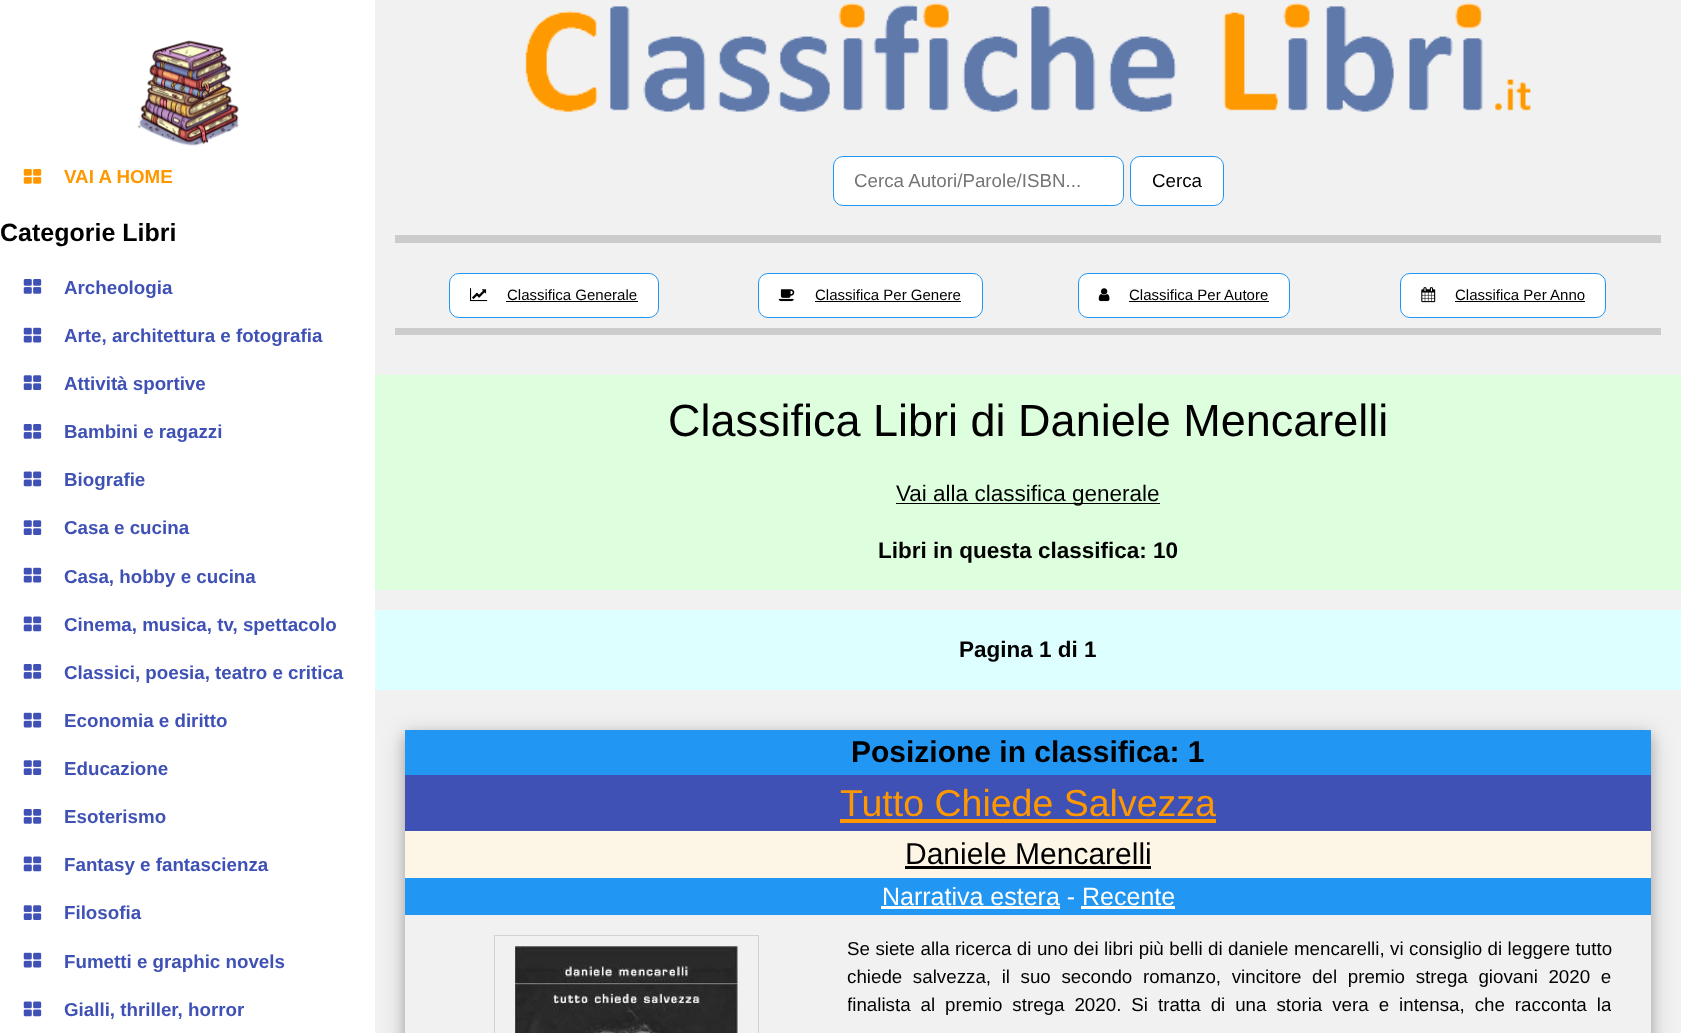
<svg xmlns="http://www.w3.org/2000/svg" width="1681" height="1033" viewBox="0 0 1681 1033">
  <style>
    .t1 { font: bold 18.75px Liberation Sans; fill: #ff9800; }
    .t2 { font: bold 25px Liberation Sans; fill: #000; }
    .t3 { font: bold 18.75px Liberation Sans; fill: #3f51b5; }
    .t4 { font: 18.75px Liberation Sans; fill: #757575; }
    .t5 { font: 18.75px Liberation Sans; fill: #000; }
    .t6 { font: 15px Liberation Sans; fill: #000; }
    .t7 { font: 45px Liberation Sans; fill: #000; }
    .t8 { font: 22.5px Liberation Sans; fill: #000; }
    .t9 { font: bold 22.5px Liberation Sans; fill: #000; }
    .t10 { font: bold 30px Liberation Sans; fill: #000; }
    .t11 { font: 37.5px Liberation Sans; fill: #ff9800; }
    .t12 { font: 30px Liberation Sans; fill: #000; }
    .t13 { font: 25px Liberation Sans; fill: #fff; }
  </style>
  <defs>
    <clipPath id="clip1"><path d="M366 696H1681V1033H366ZM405 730H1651V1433H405Z" clip-rule="evenodd"/></clipPath>
    <clipPath id="clip2"><path d="M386 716H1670V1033H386ZM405 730H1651V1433H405Z" clip-rule="evenodd"/></clipPath>
    <clipPath id="clip3"><rect x="848" y="935" width="763" height="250"/></clipPath>
  </defs>
  <rect width="100%" height="100%" fill="#f1f1f1"/>
  <g clip-path="url(#clip1)">
    <rect x="405" y="735" width="1246" height="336" fill="#00000030" filter="blur(12.5px)"/>
  </g>
  <rect x="0" y="0" width="375" height="1033" fill="#fff"/>
  <image x="137" y="40" width="103" height="106" href="images/1.png"/>
  <image x="23" y="169" width="19" height="15" href="images/2.png"/>
  <text x="64" y="183" class="t1">VAI A HOME</text>
  <text x="0" y="241" class="t2">Categorie Libri</text>
  <image x="23" y="279" width="19" height="15" href="images/3.png"/>
  <text x="64" y="294" class="t3">Archeologia</text>
  <image x="23" y="327" width="19" height="16" href="images/4.png"/>
  <text x="64" y="342" class="t3">Arte, architettura e fotografia</text>
  <image x="23" y="375" width="19" height="15" href="images/5.png"/>
  <text x="64" y="390" class="t3">Attività sportive</text>
  <image x="23" y="424" width="19" height="15" href="images/3.png"/>
  <text x="64" y="438" class="t3">Bambini e ragazzi</text>
  <image x="23" y="471" width="19" height="16" href="images/6.png"/>
  <text x="64" y="486" class="t3">Biografie</text>
  <image x="23" y="520" width="19" height="15" href="images/5.png"/>
  <text x="64" y="534" class="t3">Casa e cucina</text>
  <image x="23" y="567" width="19" height="16" href="images/4.png"/>
  <text x="64" y="583" class="t3">Casa, hobby e cucina</text>
  <image x="23" y="616" width="19" height="16" href="images/6.png"/>
  <text x="64" y="631" class="t3">Cinema, musica, tv, spettacolo</text>
  <image x="23" y="664" width="19" height="15" href="images/3.png"/>
  <text x="64" y="679" class="t3">Classici, poesia, teatro e critica</text>
  <image x="23" y="712" width="19" height="16" href="images/4.png"/>
  <text x="64" y="727" class="t3">Economia e diritto</text>
  <image x="23" y="760" width="19" height="15" href="images/5.png"/>
  <text x="64" y="775" class="t3">Educazione</text>
  <image x="23" y="809" width="19" height="15" href="images/3.png"/>
  <text x="64" y="823" class="t3">Esoterismo</text>
  <image x="23" y="856" width="19" height="16" href="images/6.png"/>
  <text x="64" y="871" class="t3">Fantasy e fantascienza</text>
  <image x="23" y="905" width="19" height="15" href="images/5.png"/>
  <text x="64" y="919" class="t3">Filosofia</text>
  <image x="23" y="952" width="19" height="16" href="images/4.png"/>
  <text x="64" y="968" class="t3">Fumetti e graphic novels</text>
  <image x="23" y="1001" width="19" height="16" href="images/6.png"/>
  <text x="64" y="1016" class="t3">Gialli, thriller, horror</text>
  <image x="525" y="2" width="1006" height="110" href="images/7.png"/>
  <rect x="395" y="235" width="1266" height="8" fill="#ccc"/>
  <rect x="833.5" y="156.5" width="290" height="49" rx="9.5" fill="#fff" stroke="#2196f3"/>
  <text x="854" y="187" class="t4">Cerca Autori/Parole/ISBN...</text>
  <rect x="1130.5" y="156.5" width="93" height="49" rx="9.5" fill="#fff" stroke="#2196f3"/>
  <text x="1152" y="187" class="t5">Cerca</text>
  <rect x="395" y="328" width="1266" height="7" fill="#ccc"/>
  <rect x="449.5" y="273.5" width="209" height="44" rx="9.5" fill="#fff" stroke="#2196f3"/>
  <image x="470" y="288" width="18" height="14" href="images/8.png"/>
  <text x="507" y="300" class="t6">Classifica Generale</text>
  <rect x="506" y="301" width="132" height="1" fill="#000"/>
  <rect x="758.5" y="273.5" width="224" height="44" rx="9.5" fill="#fff" stroke="#2196f3"/>
  <image x="778" y="289" width="17" height="13" href="images/9.png"/>
  <text x="815" y="300" class="t6">Classifica Per Genere</text>
  <rect x="815" y="301" width="146" height="1" fill="#000"/>
  <rect x="1078.5" y="273.5" width="211" height="44" rx="9.5" fill="#fff" stroke="#2196f3"/>
  <image x="1098" y="288" width="12" height="14" href="images/10.png"/>
  <text x="1129" y="300" class="t6">Classifica Per Autore</text>
  <rect x="1129" y="301" width="140" height="1" fill="#000"/>
  <rect x="1400.5" y="273.5" width="205" height="44" rx="9.5" fill="#fff" stroke="#2196f3"/>
  <image x="1421" y="287" width="15" height="16" href="images/11.png"/>
  <text x="1455" y="300" class="t6">Classifica Per Anno</text>
  <rect x="1455" y="301" width="130" height="1" fill="#000"/>
  <rect x="375" y="375" width="1306" height="215" fill="#dfd"/>
  <text x="668" y="436" class="t7">Classifica Libri di Daniele Mencarelli</text>
  <rect x="896" y="503" width="264" height="1" fill="#000"/>
  <text x="896" y="501" class="t8">Vai alla classifica generale</text>
  <text x="878" y="558" class="t9">Libri in questa classifica: 10</text>
  <rect x="375" y="610" width="1306" height="80" fill="#dff"/>
  <text x="959" y="657" class="t9">Pagina 1 di 1</text>
  <g clip-path="url(#clip2)">
    <rect x="405" y="735" width="1246" height="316" fill="#00000033" filter="blur(6px)"/>
  </g>
  <rect x="405" y="730" width="1246" height="45" fill="#2196f3"/>
  <text x="851" y="762" class="t10">Posizione in classifica: 1</text>
  <rect x="405" y="775" width="1246" height="56" fill="#3f51b5"/>
  <text x="840" y="816" class="t11">Tutto Chiede Salvezza</text>
  <rect x="840" y="819" width="376" height="4" fill="#ff9800"/>
  <rect x="405" y="831" width="1246" height="47" fill="#fdf5e6"/>
  <text x="905" y="864" class="t12">Daniele Mencarelli</text>
  <rect x="905" y="866" width="246" height="3" fill="#000"/>
  <rect x="405" y="878" width="1246" height="37" fill="#2196f3"/>
  <text x="882" y="905" class="t13">Narrativa estera - Recente</text>
  <rect x="881" y="906" width="179" height="3" fill="#fff"/>
  <rect x="1081" y="906" width="94" height="3" fill="#fff"/>
  <rect x="494.5" y="935.5" width="264" height="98" fill="none" stroke="#d2d2d2"/>
  <image x="515" y="946" width="223" height="87" href="images/12.png"/>
  <text x="847" y="955" word-spacing="0.25" class="t5">Se siete alla ricerca di uno dei libri più belli di daniele mencarelli, vi consiglio di leggere tutto</text>
  <text x="847" y="983" word-spacing="5.4" class="t5">chiede salvezza, il suo secondo romanzo, vincitore del premio strega giovani 2020 e</text>
  <g clip-path="url(#clip3)">
    <text x="847" y="1011" word-spacing="4.75" class="t5">finalista al premio strega 2020. Si tratta di una storia vera e intensa, che racconta la</text>
  </g>
</svg>
